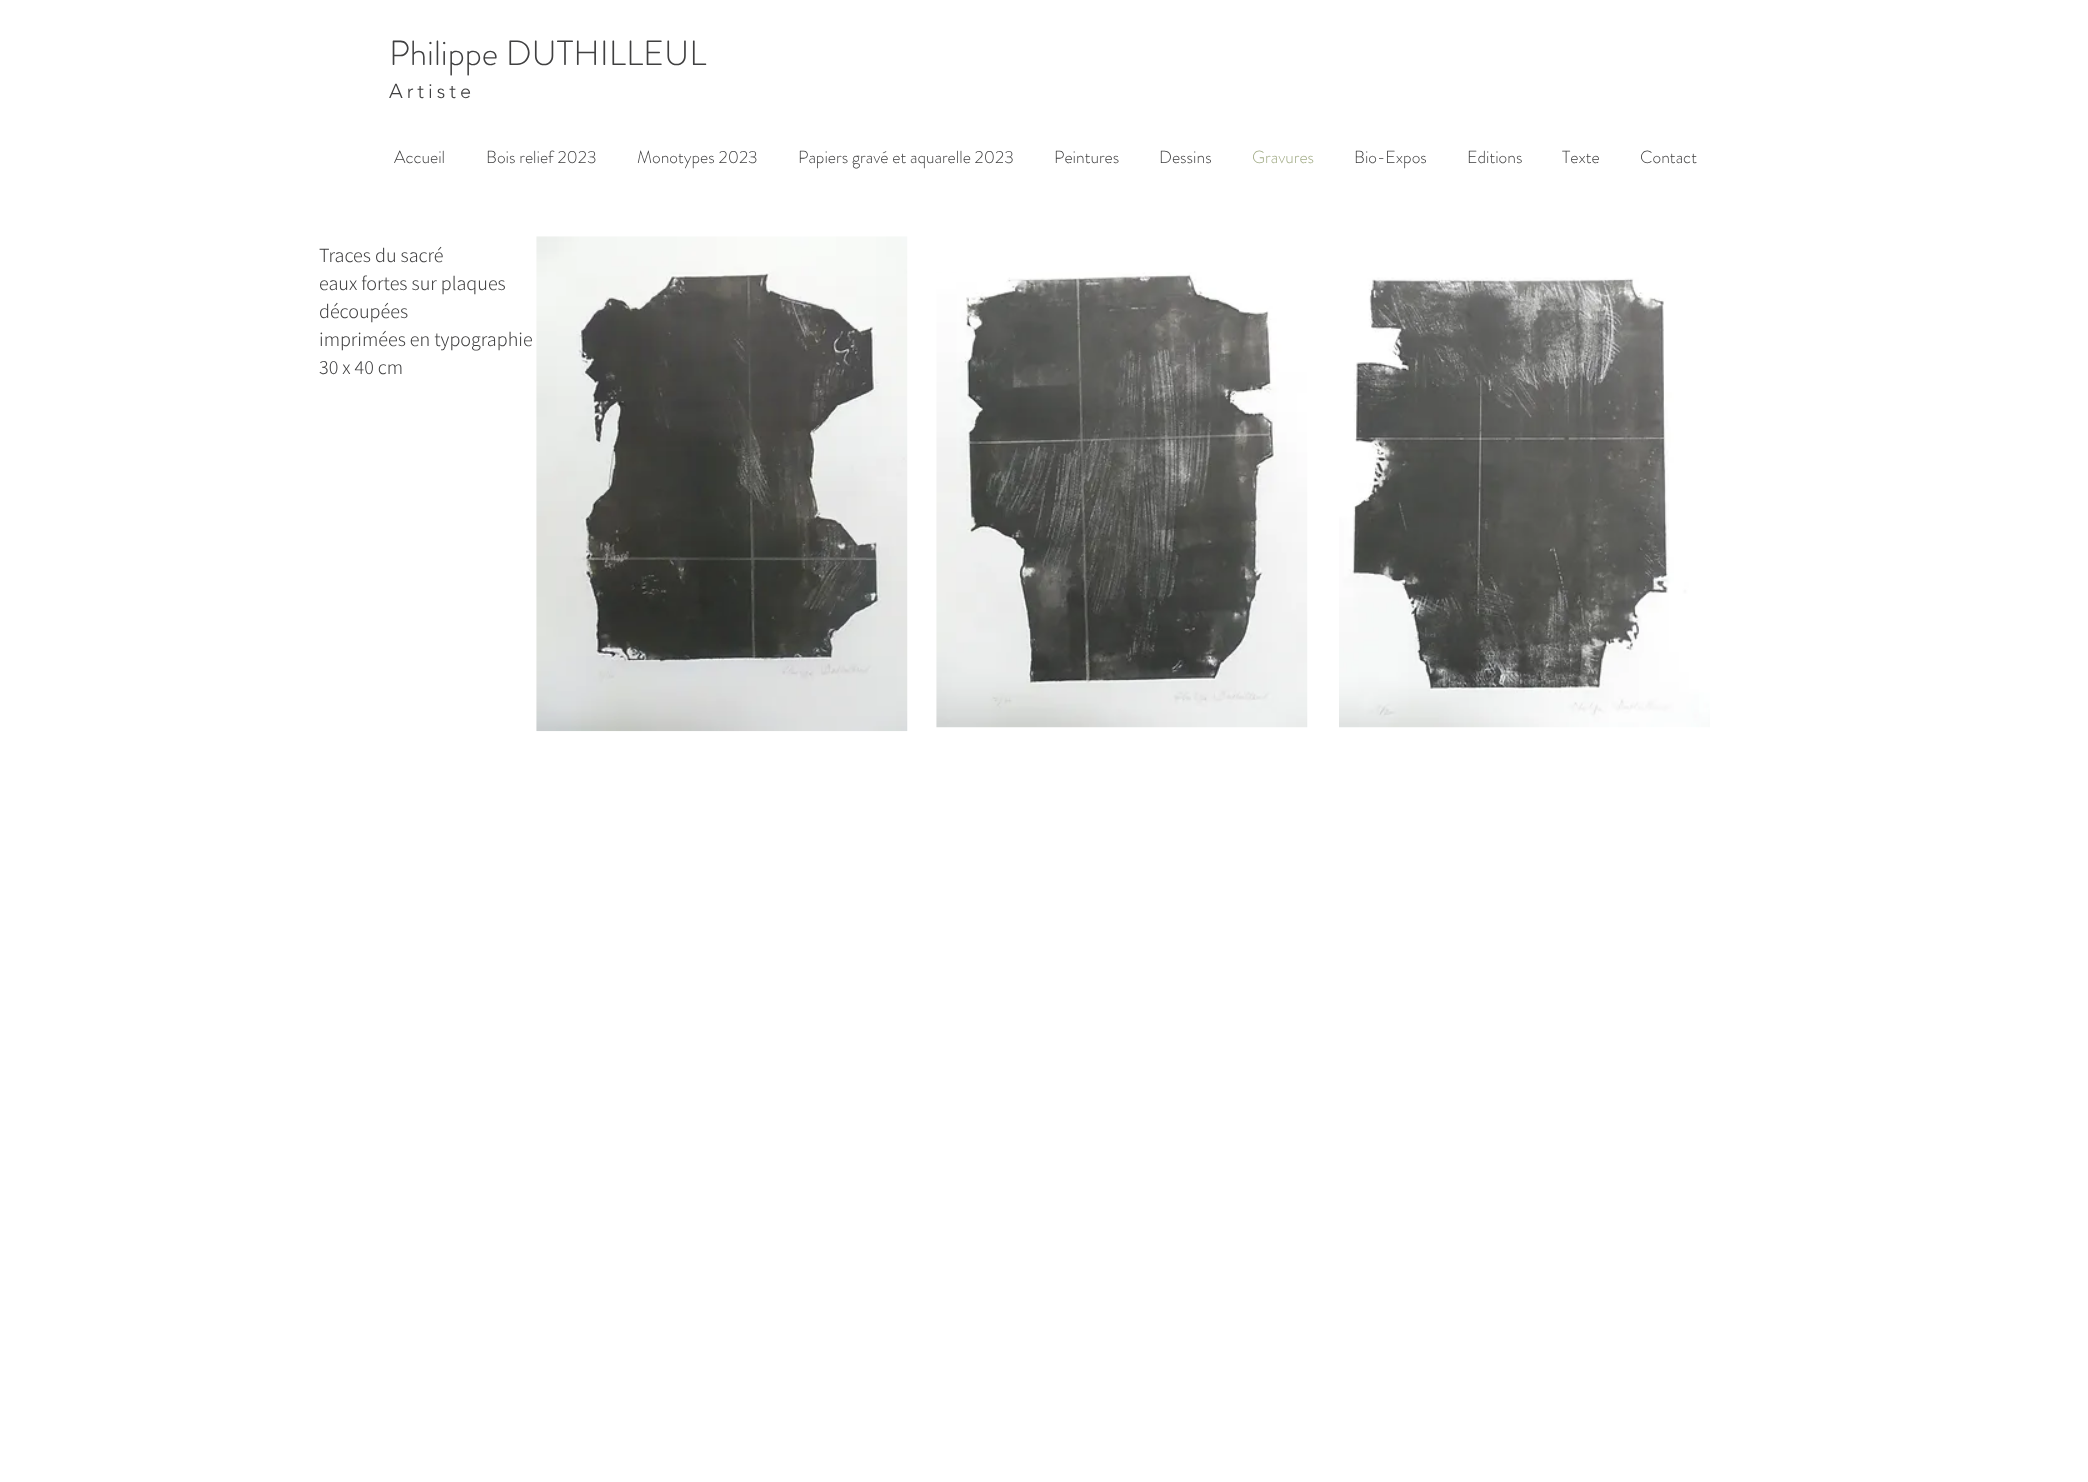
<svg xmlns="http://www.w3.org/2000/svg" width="2088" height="1482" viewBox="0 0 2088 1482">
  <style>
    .t1 { font: 300 35px 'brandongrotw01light'; fill: #404041; }
    .t2 { font: 300 20px 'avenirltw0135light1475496'; letter-spacing: 4px; fill: #404041; }
    .t3 { font: 300 17.5px 'brandongrotw01light'; fill: #404041; }
    .t4 { font: 300 17.5px 'brandongrotw01light'; fill: #a2ac87; }
    .t5 { font: 300 20px Assistant; fill: #404041; }
  </style>
  <rect width="100%" height="100%" fill="#fff"/>
  <text x="389" y="65" class="t1">Philippe DUTHILLEUL</text>
  <text x="389" y="98" class="t2">Artiste</text>
  <text x="394" y="163" class="t3">Accueil</text>
  <text x="486" y="163" class="t3">Bois relief 2023</text>
  <text x="637" y="163" class="t3">Monotypes 2023</text>
  <text x="798" y="163" class="t3">Papiers gravé et aquarelle 2023</text>
  <text x="1054" y="163" class="t3">Peintures</text>
  <text x="1159" y="163" class="t3">Dessins</text>
  <text x="1252" y="163" class="t4">Gravures</text>
  <text x="1354" y="163" class="t3">Bio-Expos</text>
  <text x="1467" y="163" class="t3">Editions</text>
  <text x="1562" y="163" class="t3">Texte</text>
  <text x="1640" y="163" class="t3">Contact</text>
  <text x="319" y="262" class="t5">Traces du sacré</text>
  <text x="319" y="290" class="t5">eaux fortes sur plaques</text>
  <text x="319" y="318" class="t5">découpées</text>
  <text x="319" y="346" class="t5">imprimées en typographie</text>
  <text x="319" y="374" class="t5">30 x 40 cm</text>
  <image x="536" y="236" width="372" height="496" href="images/1.png"/>
  <image x="936" y="272" width="372" height="456" href="images/2.png"/>
  <image x="1339" y="277" width="371" height="451" href="images/3.png"/>
</svg>
